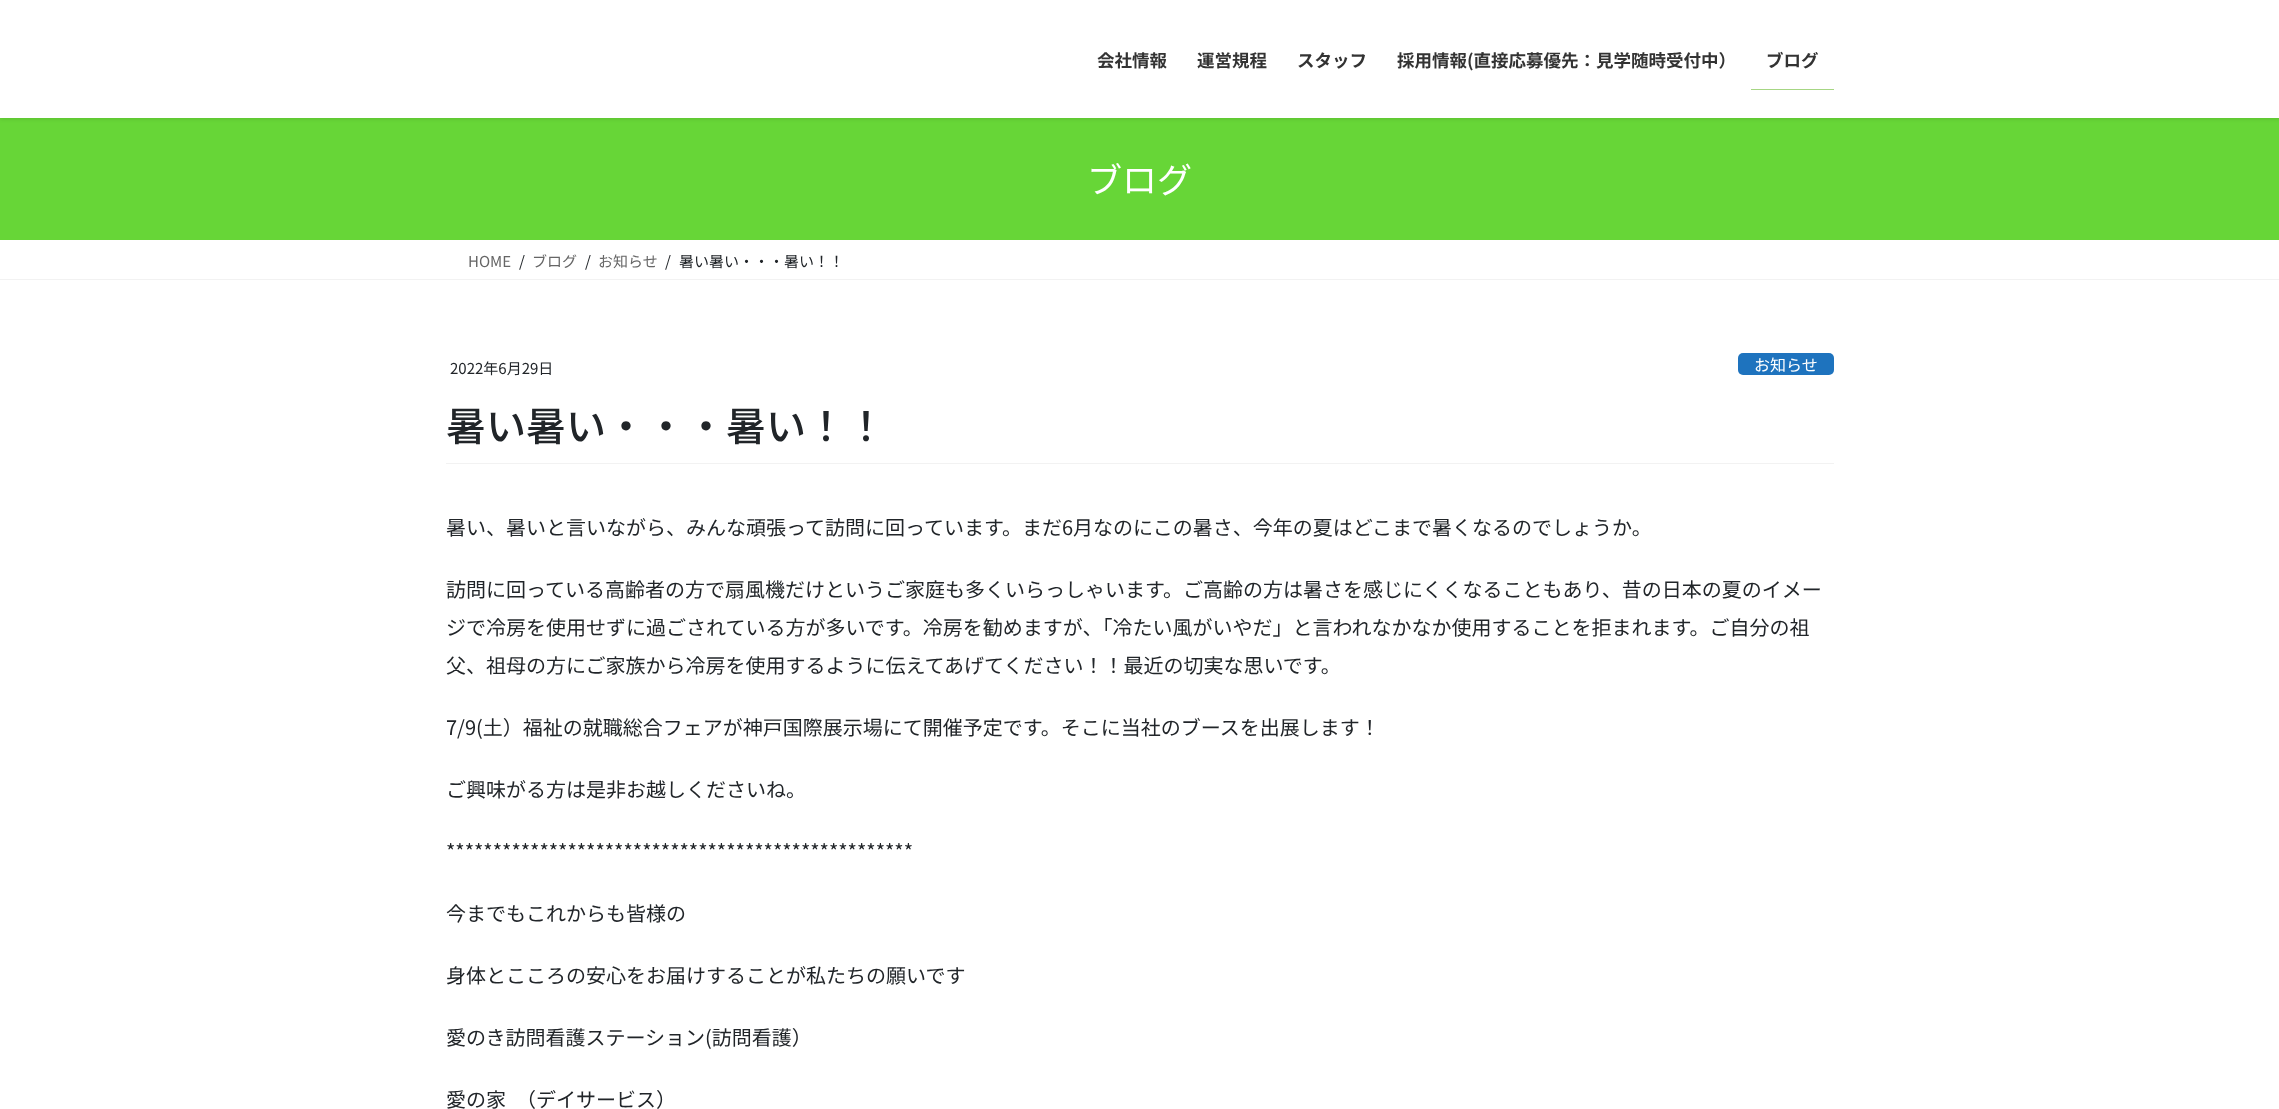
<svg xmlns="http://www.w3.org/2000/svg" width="2279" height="1109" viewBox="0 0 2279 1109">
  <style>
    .t1 { font: bold 17.5px Noto Sans JP; fill: #333; }
    .t2 { font: 35px Noto Sans JP; fill: #fff; }
    .t3 { font: 15px Noto Sans JP; fill: #666; }
    .t4 { font: 15px Noto Sans JP; fill: #212529; }
    .t5 { font: 16px Noto Sans JP; fill: #fff; }
    .t6 { font: 500 40px Noto Sans JP; fill: #212529; }
    .t7 { font: 20px Noto Sans JP; fill: #212529; }
  </style>
  <rect width="100%" height="100%" fill="#fff"/>
  <rect x="0" y="118" width="2279" height="122" fill="#67d637"/>
  <rect x="0" y="1" width="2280" height="118" fill="#0000001a" filter="blur(2px)"/>
  <rect x="0" y="0" width="2279" height="118" fill="#fff"/>
  <text x="1097" y="67" class="t1">会社情報</text>
  <text x="1197" y="67" class="t1">運営規程</text>
  <text x="1297" y="67" class="t1">スタッフ</text>
  <text x="1397" y="67" class="t1">採用情報(直接応募優先：見学随時受付中）</text>
  <text x="1766" y="67" class="t1">ブログ</text>
  <rect x="1751" y="89" width="83" height="1" fill="#a6d684"/>
  <text x="1087" y="193" class="t2">ブログ</text>
  <rect x="0" y="279" width="2279" height="1" fill="#f2f2f2"/>
  <text x="468" y="267" class="t3">HOME</text>
  <text x="519" y="267" class="t4">/</text>
  <text x="532" y="267" class="t3">ブログ</text>
  <text x="585" y="267" class="t4">/</text>
  <text x="598" y="267" class="t3">お知らせ</text>
  <text x="665" y="267" class="t4">/</text>
  <text x="679" y="267" class="t4">暑い暑い・・・暑い！！</text>
  <rect x="446" y="463" width="1388" height="1" fill="#f2f2f2"/>
  <text x="450" y="374" class="t4">2022年6月29日</text>
  <rect x="1738" y="353" width="96" height="22" rx="5" fill="#1e73be"/>
  <text x="1754" y="371" class="t5">お知らせ</text>
  <text x="446" y="441" class="t6">暑い暑い・・・暑い！！</text>
  <text x="446" y="535" class="t7">暑い、暑いと言いながら、みんな頑張って訪問に回っています。まだ6月なのにこの暑さ、今年の夏はどこまで暑くなるのでしょうか。</text>
  <text x="446" y="597" class="t7">訪問に回っている高齢者の方で扇風機だけというご家庭も多くいらっしゃいます。ご高齢の方は暑さを感じにくくなることもあり、昔の日本の夏のイメー</text>
  <text x="446" y="635" class="t7">ジで冷房を使用せずに過ごされている方が多いです。冷房を勧めますが、「冷たい風がいやだ」と言われなかなか使用することを拒まれます。ご自分の祖</text>
  <text x="446" y="673" class="t7">父、祖母の方にご家族から冷房を使用するように伝えてあげてください！！最近の切実な思いです。</text>
  <text x="446" y="735" class="t7">7/9(土）福祉の就職総合フェアが神戸国際展示場にて開催予定です。そこに当社のブースを出展します！</text>
  <text x="446" y="797" class="t7">ご興味がる方は是非お越しくださいね。</text>
  <text x="446" y="859" class="t7">**************************************************</text>
  <text x="446" y="921" class="t7">今までもこれからも皆様の</text>
  <text x="446" y="983" class="t7">身体とこころの安心をお届けすることが私たちの願いです</text>
  <text x="446" y="1045" class="t7">愛のき訪問看護ステーション(訪問看護）</text>
  <text x="446" y="1107" class="t7">愛の家　（デイサービス）</text>
</svg>
